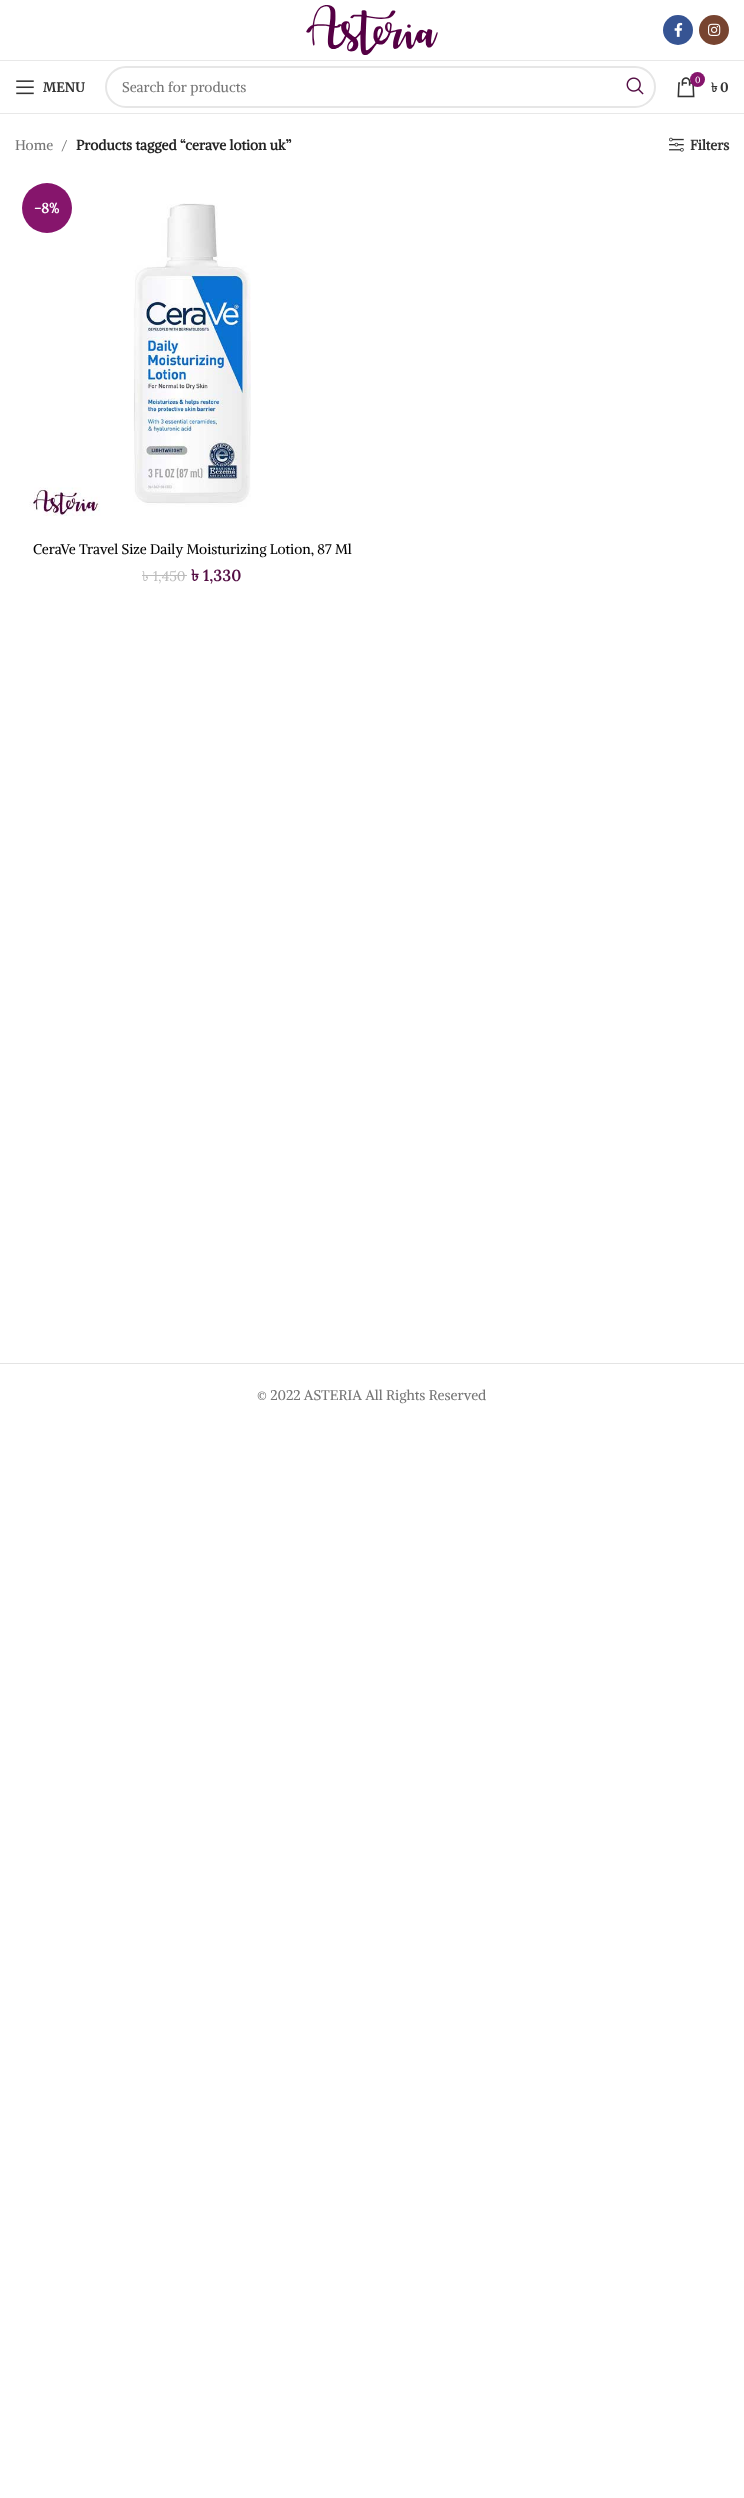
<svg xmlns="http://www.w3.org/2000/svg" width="744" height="2498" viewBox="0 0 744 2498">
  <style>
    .t1 { font: 300 13px Merriweather; fill: #333; }
    .t2 { font: 14px Alike; fill: #767676; }
    .t3 { font: 9px Alike; fill: #fff; }
    .t4 { font: bold 13px Lohit Bengali; fill: #333; }
    .t5 { font: bold 14px Alike; fill: #242424; }
    .t6 { font: bold 14px Alike; fill: #333; }
    .t7 { font: bold 14px Alike; fill: #fff; }
    .t8 { font: 14px Alike; fill: #000; }
    .t9 { font: 14px Lohit Bengali; fill: #bbb; }
    .t10 { font: 14px Lora; fill: #bbb; }
    .t11 { font: bold 16px Lohit Bengali; fill: #530d43; }
    .t12 { font: 600 16px Lora; fill: #530d43; }
  </style>
  <rect width="100%" height="100%" fill="#fff"/>
  <rect x="0" y="60" width="744" height="1" fill="#e8e8e8"/>
  <image x="306" y="5" width="132" height="50" href="images/1.png"/>
  <circle cx="678" cy="30" r="15" fill="#365493"/>
  <image x="674" y="22" width="9" height="15" href="images/2.png"/>
  <circle cx="714" cy="30" r="15" fill="#774430"/>
  <image x="708" y="23" width="13" height="13" href="images/3.png"/>
  <rect x="0" y="113" width="744" height="1" fill="#e8e8e8"/>
  <image x="16" y="80" width="18" height="15" href="images/4.png"/>
  <text x="43" y="92" class="t1">MENU</text>
  <rect x="106" y="67" width="549" height="40" rx="20" fill="none" stroke="#e6e6e6" stroke-width="2"/>
  <text x="122" y="92" class="t2">Search for products</text>
  <image x="626" y="77" width="18" height="18" href="images/5.png"/>
  <image x="677" y="77" width="18" height="21" href="images/6.png"/>
  <circle cx="697.5" cy="79.5" r="7.5" fill="#86156c"/>
  <text x="695" y="83" class="t3">0</text>
  <text x="711" y="92" class="t4">৳</text>
  <text x="720" y="92" class="t1">0</text>
  <text x="15" y="150" class="t2">Home</text>
  <text x="61" y="150" class="t2">/</text>
  <text x="76" y="150" class="t5">Products tagged “cerave lotion uk”</text>
  <image x="669" y="137" width="15" height="15" href="images/7.png"/>
  <text x="690" y="150" class="t6">Filters</text>
  <image x="29" y="203" width="222" height="313" href="images/8.png"/>
  <circle cx="47" cy="208" r="25" fill="#86156c"/>
  <text x="34" y="213" class="t7">-8%</text>
  <text x="33" y="554" class="t8">CeraVe Travel Size Daily Moisturizing Lotion, 87 Ml</text>
  <text x="142" y="581" class="t9">৳</text>
  <rect x="142" y="575" width="11" height="1" fill="#bbb"/>
  <text x="153" y="581" class="t10">1,450</text>
  <rect x="153" y="575" width="34" height="1" fill="#bbb"/>
  <text x="191" y="581" class="t11">৳</text>
  <text x="203" y="581" class="t12">1,330</text>
  <rect x="0" y="1363" width="744" height="1" fill="#e4e4e4"/>
  <text x="257" y="1400" class="t2">© 2022 ASTERIA All Rights Reserved</text>
</svg>
